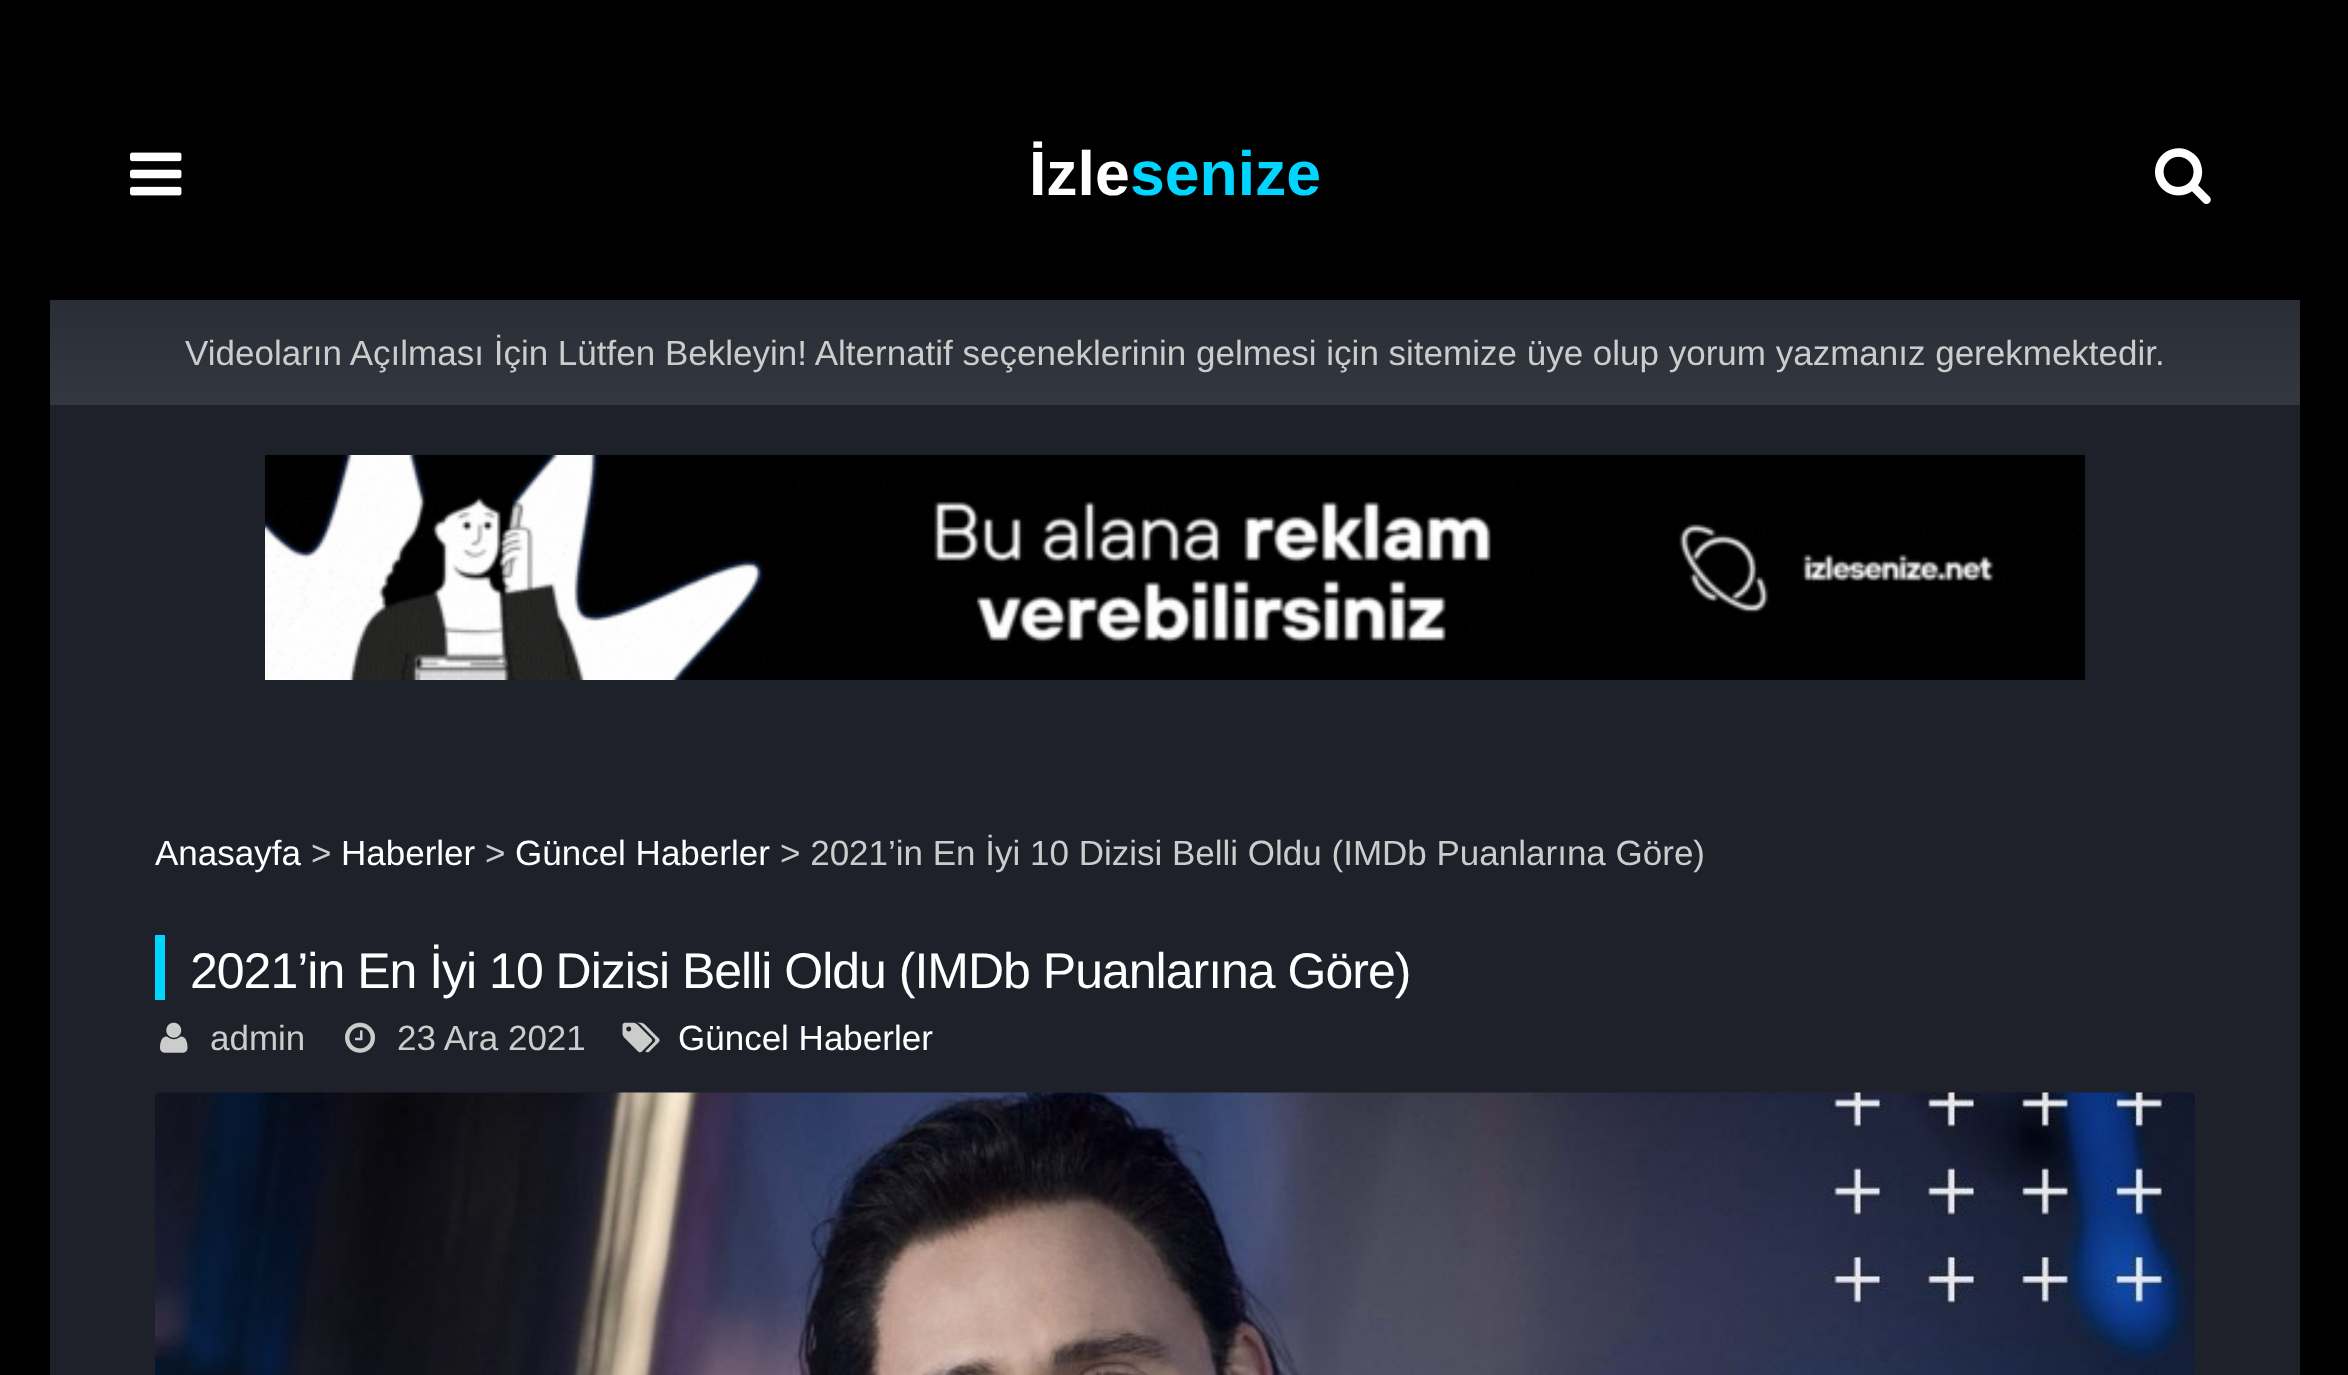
<svg xmlns="http://www.w3.org/2000/svg" width="2348" height="1375" viewBox="0 0 2348 1375">
  <style>
    .t1 { font: bold 62.5px Liberation Sans; fill: #fff; }
    .t2 { font: bold 62.5px Liberation Sans; fill: #00d5ff; }
    .t3 { font: 35px Liberation Sans; fill: #ccc; }
    .t4 { font: 35px Liberation Sans; fill: #fff; }
    .t5 { font: 50px Liberation Sans; letter-spacing: -1px; fill: #fff; }
  </style>
  <defs>
    <linearGradient id="g1" gradientUnits="userSpaceOnUse" x1="1175" y1="300" x2="1175" y2="405"><stop offset="0" stop-color="#292d35"/><stop offset="1" stop-color="#33373f"/></linearGradient>
  </defs>
  <rect width="100%" height="100%" fill="#000"/>
  <image x="130" y="152" width="52" height="44" href="images/1.png"/>
  <text x="1029" y="195" class="t1">İzle</text>
  <text x="1130" y="195" class="t2">senize</text>
  <image x="2155" y="148" width="56" height="56" href="images/2.png"/>
  <rect x="50" y="300" width="2250" height="105" fill="url(#g1)"/>
  <text x="185" y="365" class="t3">Videoların Açılması İçin Lütfen Bekleyin! Alternatif seçeneklerinin gelmesi için sitemize üye olup yorum yazmanız gerekmektedir.</text>
  <rect x="50" y="405" width="2250" height="970" fill="#1e2129"/>
  <image x="265" y="455" width="1820" height="225" href="images/3.png"/>
  <text x="155" y="865" class="t4">Anasayfa</text>
  <text x="311" y="865" class="t3">&gt;</text>
  <text x="341" y="865" class="t4">Haberler</text>
  <text x="485" y="865" class="t3">&gt;</text>
  <text x="515" y="865" class="t4">Güncel Haberler</text>
  <text x="780" y="865" class="t3">&gt; 2021’in En İyi 10 Dizisi Belli Oldu (IMDb Puanlarına Göre)</text>
  <rect x="155" y="935" width="10" height="65" fill="#00d5ff"/>
  <text x="190" y="988" class="t5">2021’in En İyi 10 Dizisi Belli Oldu (IMDb Puanlarına Göre)</text>
  <image x="160" y="1022" width="28" height="31" href="images/4.png"/>
  <text x="210" y="1050" class="t3">admin</text>
  <image x="345" y="1022" width="30" height="31" href="images/5.png"/>
  <text x="397" y="1050" class="t3">23 Ara 2021</text>
  <image x="622" y="1022" width="38" height="31" href="images/6.png"/>
  <text x="678" y="1050" class="t4">Güncel Haberler</text>
  <image x="155" y="1092" width="2040" height="283" href="images/7.png"/>
</svg>
